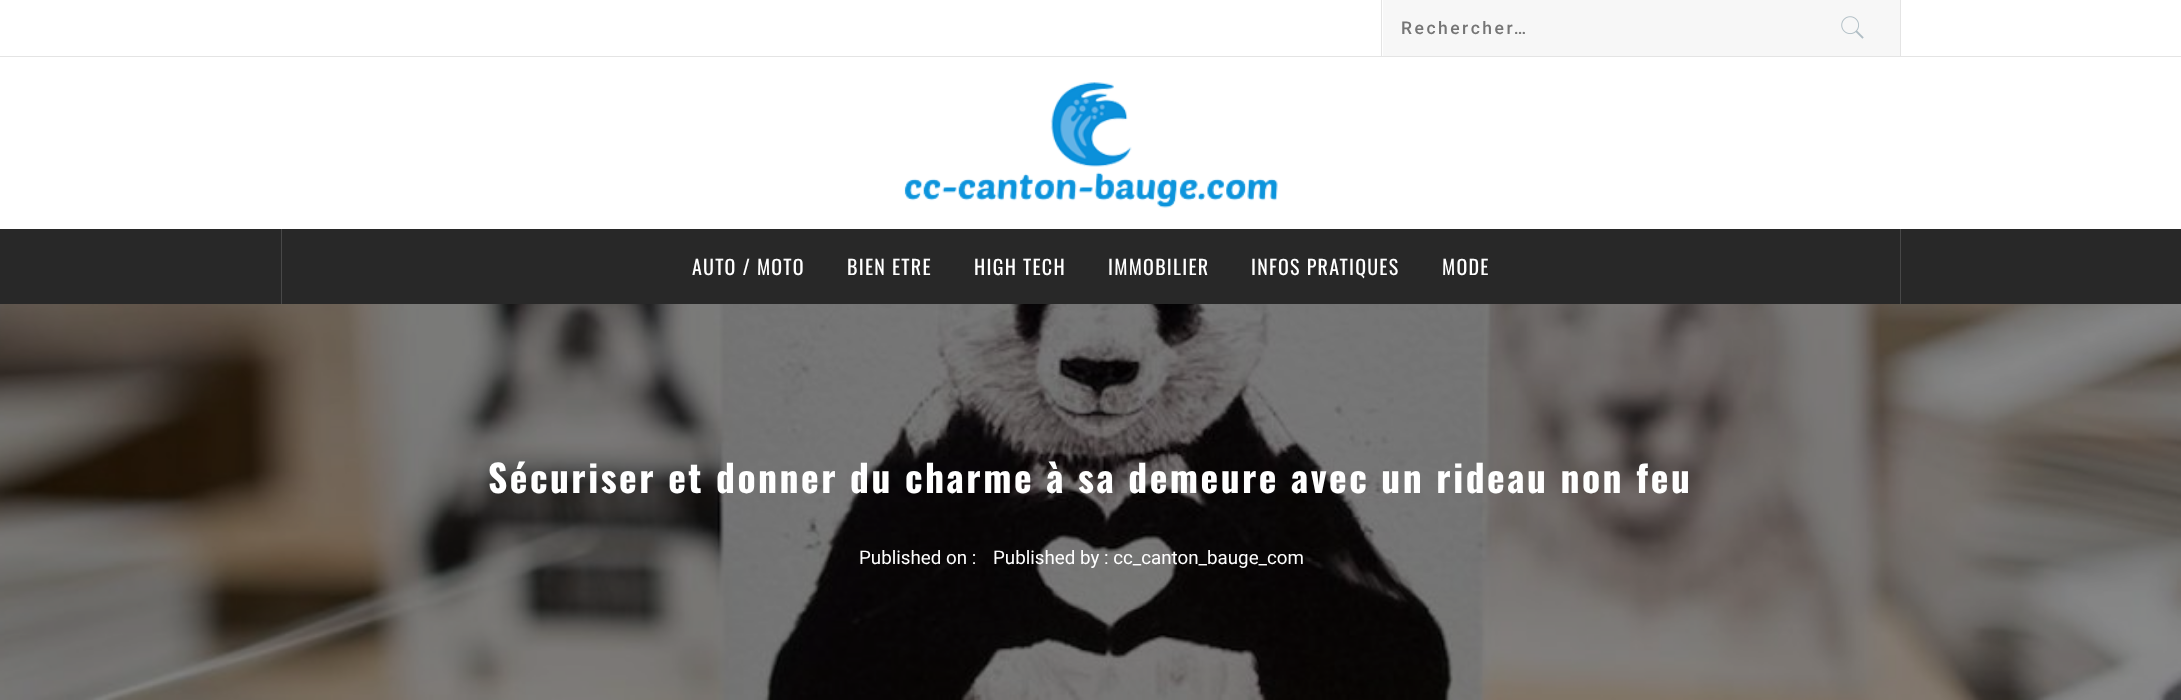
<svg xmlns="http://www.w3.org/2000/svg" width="2181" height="700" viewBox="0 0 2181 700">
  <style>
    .t1 { font: 500 17.5px Roboto; letter-spacing: 2.5px; fill: #757575; }
    .t2 { font: 20px Oswald; letter-spacing: 1.25px; fill: #fff; }
    .t3 { font: bold 37.5px Oswald; letter-spacing: 2.5px; fill: #fff; }
    .t4 { font: 18.75px Roboto; fill: #fff; }
  </style>
  <rect width="100%" height="100%" fill="#fff"/>
  <rect x="0" y="56" width="2181" height="1" fill="#e4e4e4"/>
  <rect x="1383" y="0" width="517" height="56" fill="#f7f7f7"/>
  <rect x="1900" y="0" width="1" height="56" fill="#e4e4e4"/>
  <rect x="1381" y="0" width="1" height="56" fill="#e4e4e4"/>
  <text x="1401" y="34" class="t1">Rechercher…</text>
  <image x="1841" y="16" width="23" height="23" href="images/1.png"/>
  <image x="904" y="82" width="374" height="126" href="images/2.png"/>
  <rect x="0" y="229" width="2181" height="75" fill="#282828"/>
  <rect x="1900" y="229" width="1" height="75" fill="#484848"/>
  <rect x="281" y="229" width="1" height="75" fill="#484848"/>
  <text x="692" y="275" class="t2">AUTO / MOTO</text>
  <text x="847" y="275" class="t2">BIEN ETRE</text>
  <text x="974" y="275" class="t2">HIGH TECH</text>
  <text x="1108" y="275" class="t2">IMMOBILIER</text>
  <text x="1251" y="275" class="t2">INFOS PRATIQUES</text>
  <text x="1442" y="275" class="t2">MODE</text>
  <image x="0" y="304" width="2181" height="396" href="images/3.png"/>
  <text x="488" y="493" class="t3">Sécuriser et donner du charme à sa demeure avec un rideau non feu</text>
  <text x="859" y="564" class="t4">Published on :</text>
  <text x="993" y="564" class="t4">Published by : cc_canton_bauge_com</text>
</svg>
